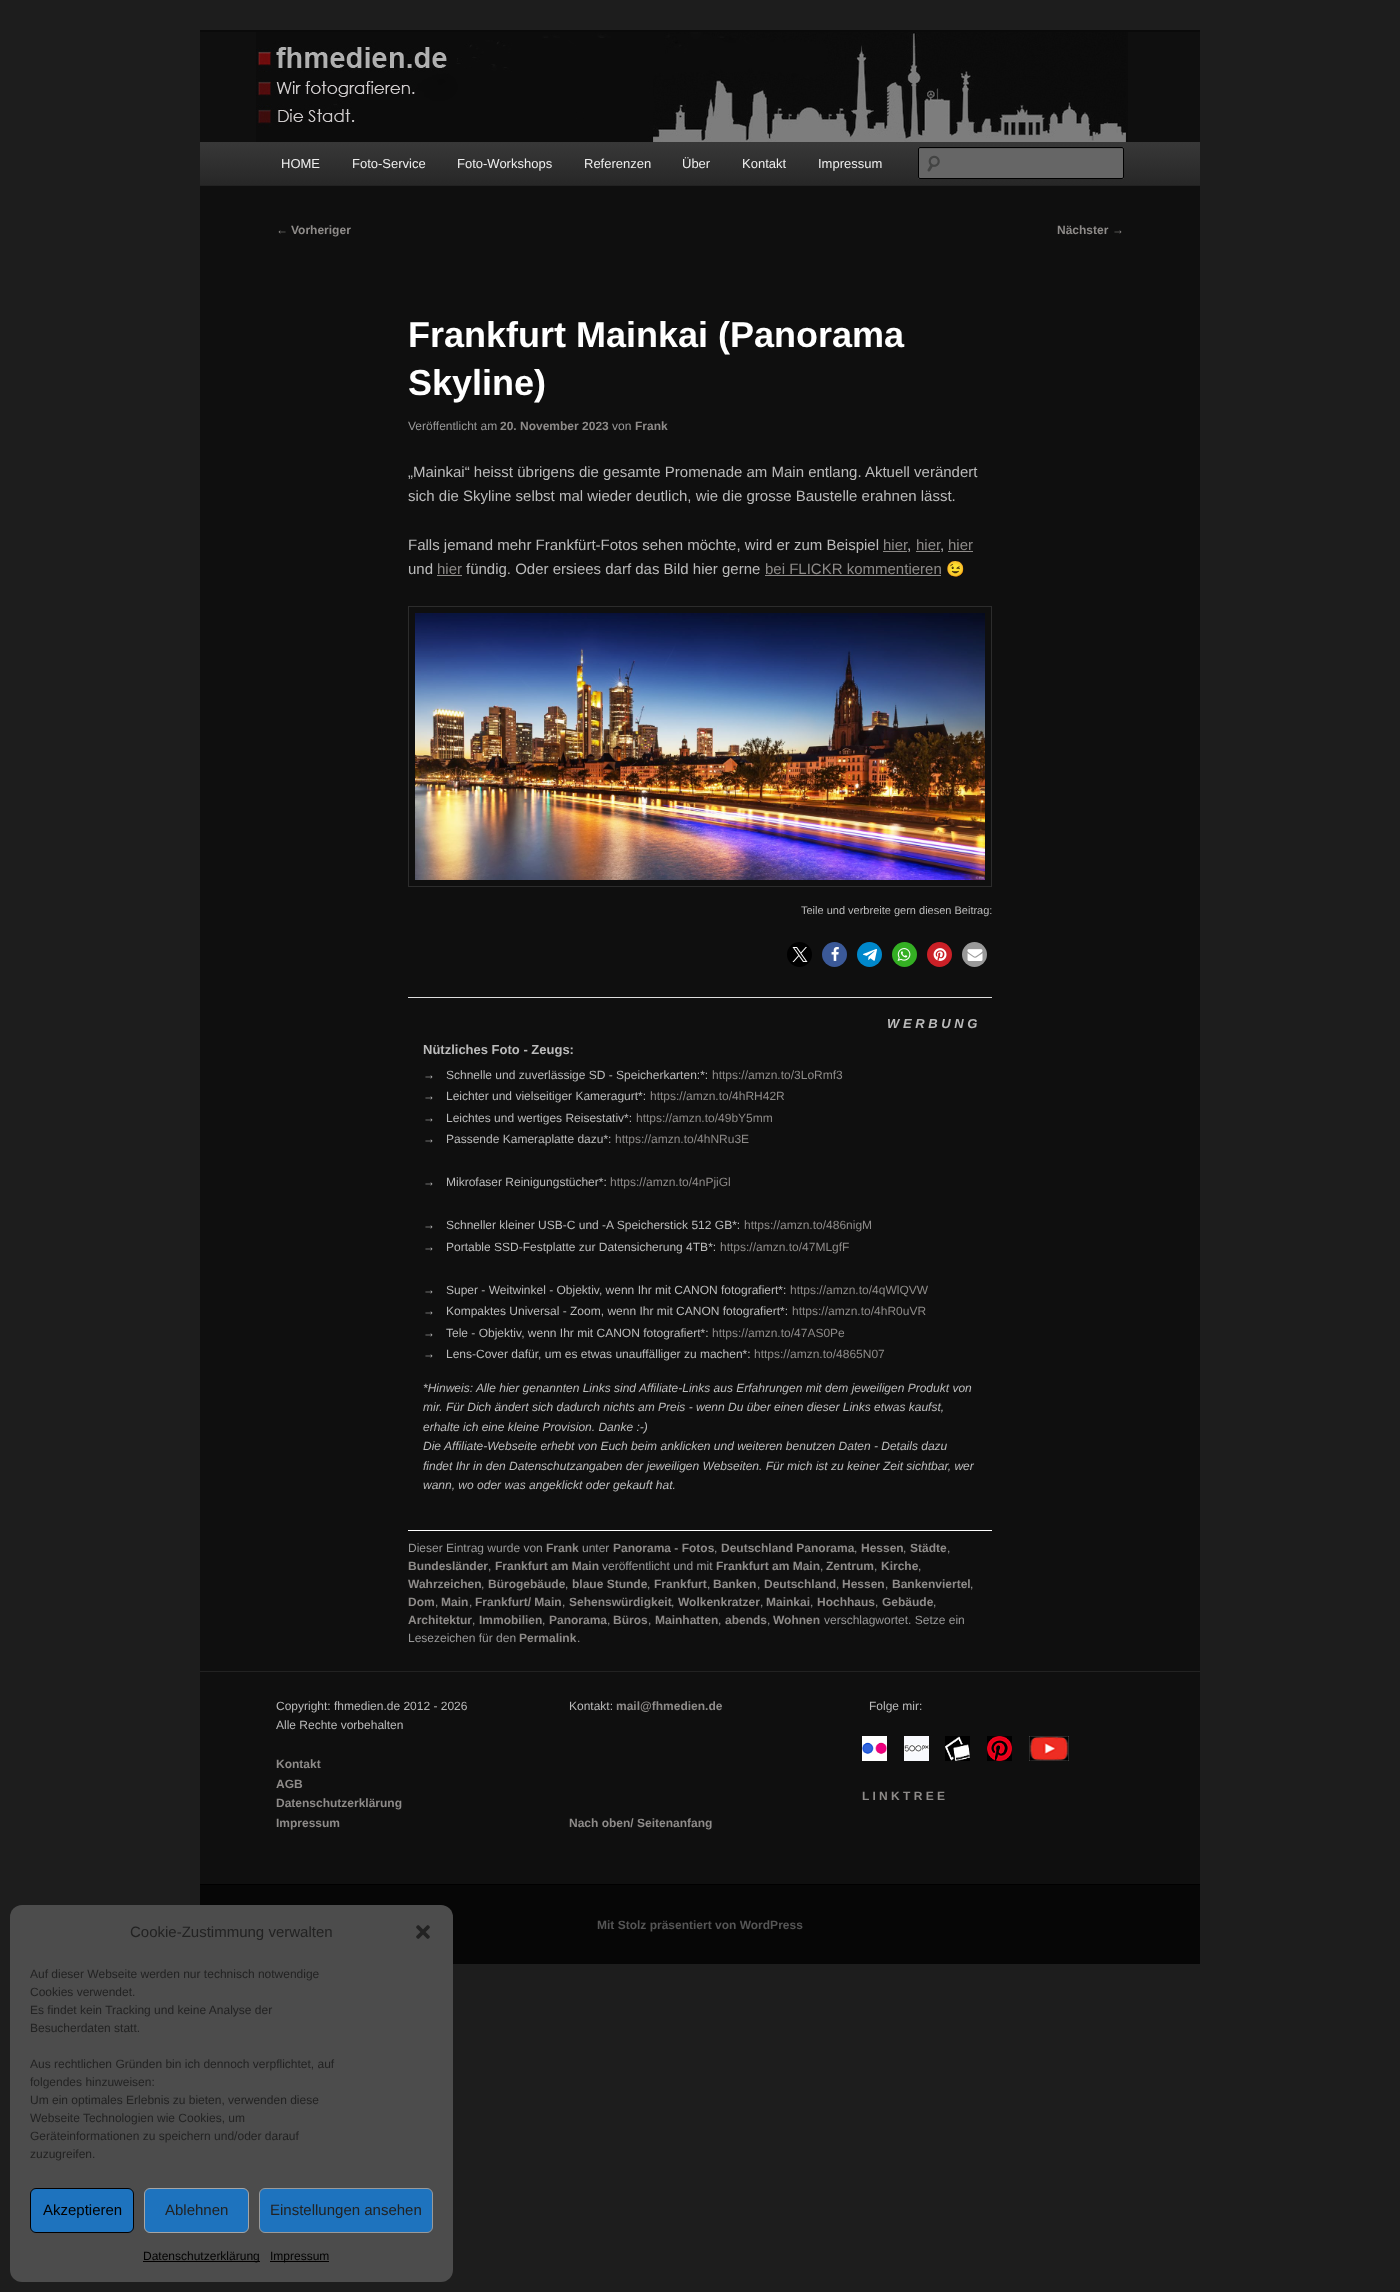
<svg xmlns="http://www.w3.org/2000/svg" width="1400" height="2292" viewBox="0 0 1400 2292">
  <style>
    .t1 { font: 13px Liberation Sans; fill: #eee; }
    .t2 { font: 12px Liberation Sans; fill: #8e8b89; }
    .t3 { font: bold 12px Liberation Sans; fill: #8e8b89; }
    .t4 { font: bold 36px Liberation Sans; fill: #fff; }
    .t5 { font: 12px Liberation Sans; fill: #999; }
    .t6 { font: 15px Liberation Sans; fill: #bbb; }
    .t7 { font: 15px Liberation Sans; fill: #8e8b89; }
    .t8 { font: 15px Noto Color Emoji; fill: #bbb; }
    .t9 { font: 11px Liberation Sans; fill: #bbb; }
    .t10 { font: italic bold 13px Liberation Sans; fill: #bbb; }
    .t11 { font: bold 13px Liberation Sans; fill: #bbb; }
    .t12 { font: 12px Liberation Sans; fill: #bbb; }
    .t13 { font: italic 12px Liberation Sans; fill: #bbb; }
    .t14 { font: bold 12px Liberation Sans; fill: #555; }
    .t15 { font: 15px Liberation Sans; fill: #222; }
    .t16 { font: 12px Liberation Sans; fill: #222; }
    .t17 { font: 15px Liberation Sans; fill: #020202; }
    .t18 { font: 12px Liberation Sans; fill: #020202; }
  </style>
  <defs>
    <linearGradient id="g1" gradientUnits="userSpaceOnUse" x1="700" y1="142" x2="700" y2="185"><stop offset="0" stop-color="#383838"/><stop offset="1" stop-color="#272727"/></linearGradient>
  </defs>
  <rect width="100%" height="100%" fill="#1d1d1d"/>
  <rect x="200" y="32" width="1000" height="1852" fill="#0f0f0f"/>
  <rect x="200" y="30" width="1000" height="2" fill="#0a0a0a"/>
  <image x="256" y="32" width="872" height="110" href="images/1.png"/>
  <rect x="200" y="142" width="1000" height="43" fill="url(#g1)"/>
  <rect x="200" y="185" width="1000" height="1" fill="#222"/>
  <text x="281" y="168" class="t1">HOME</text>
  <text x="352" y="168" class="t1">Foto-Service</text>
  <text x="457" y="168" class="t1">Foto-Workshops</text>
  <text x="584" y="168" class="t1">Referenzen</text>
  <text x="682" y="168" class="t1">Über</text>
  <text x="742" y="168" class="t1">Kontakt</text>
  <text x="818" y="168" class="t1">Impressum</text>
  <rect x="918" y="147" width="206" height="32" rx="2" fill="#666"/>
  <image x="927" y="155" width="13" height="17" href="images/2.png"/>
  <path d="M920 149H1123V150V148H1122H920C919 148 919 149 919 150C919 149 919 149 920 149Z" fill="#5c5c5c"/>
  <rect x="918.5" y="147.5" width="205" height="31" rx="1.5" fill="none" stroke="#000"/>
  <text x="276" y="234" class="t2">←</text>
  <text x="291" y="234" class="t3">Vorheriger</text>
  <text x="1057" y="234" class="t3">Nächster</text>
  <text x="1112" y="234" class="t2">→</text>
  <text x="408" y="347" class="t4">Frankfurt Mainkai (Panorama</text>
  <text x="408" y="395" class="t4">Skyline)</text>
  <text x="408" y="430" class="t5">Veröffentlicht am</text>
  <text x="500" y="430" class="t3">20. November 2023</text>
  <text x="612" y="430" class="t5">von</text>
  <text x="635" y="430" class="t3">Frank</text>
  <text x="408" y="477" class="t6">„Mainkai“ heisst übrigens die gesamte Promenade am Main entlang. Aktuell verändert</text>
  <text x="408" y="501" class="t6">sich die Skyline selbst mal wieder deutlich, wie die grosse Baustelle erahnen lässt.</text>
  <text x="408" y="550" class="t6">Falls jemand mehr Frankfürt-Fotos sehen möchte, wird er zum Beispiel</text>
  <text x="883" y="550" class="t7">hier</text>
  <rect x="883" y="551" width="24" height="1" fill="#8e8b89"/>
  <text x="907" y="550" class="t6">,</text>
  <text x="916" y="550" class="t7">hier</text>
  <rect x="916" y="551" width="24" height="1" fill="#8e8b89"/>
  <text x="940" y="550" class="t6">,</text>
  <text x="948" y="550" class="t7">hier</text>
  <rect x="948" y="551" width="25" height="1" fill="#8e8b89"/>
  <text x="408" y="574" class="t6">und</text>
  <text x="437" y="574" class="t7">hier</text>
  <rect x="437" y="575" width="25" height="1" fill="#8e8b89"/>
  <text x="466" y="574" class="t6">fündig. Oder ersiees darf das Bild hier gerne</text>
  <text x="765" y="574" class="t7">bei FLICKR kommentieren</text>
  <rect x="765" y="575" width="176" height="1" fill="#8e8b89"/>
  <text x="946" y="574" class="t8">😉</text>
  <rect x="408.5" y="606.5" width="583" height="280" fill="none" stroke="#2c2c2c"/>
  <image x="415" y="613" width="570" height="267" href="images/3.png"/>
  <text x="801" y="914" class="t9">Teile und verbreite gern diesen Beitrag:</text>
  <circle cx="799.5" cy="954.5" r="12.5" fill="#000"/>
  <image x="792" y="947" width="16" height="15" href="images/4.png"/>
  <circle cx="834.5" cy="954.5" r="12.5" fill="#3b5998"/>
  <image x="831" y="947" width="8" height="14" href="images/5.png"/>
  <circle cx="869.5" cy="954.5" r="12.5" fill="#08c"/>
  <image x="863" y="949" width="14" height="12" href="images/6.png"/>
  <circle cx="904.5" cy="954.5" r="12.5" fill="#34af23"/>
  <image x="897" y="948" width="14" height="13" href="images/7.png"/>
  <circle cx="939.5" cy="954.5" r="12.5" fill="#cb2027"/>
  <image x="933" y="948" width="14" height="13" href="images/8.png"/>
  <circle cx="974.5" cy="954.5" r="12.5" fill="#999"/>
  <image x="967" y="949" width="16" height="12" href="images/9.png"/>
  <rect x="408" y="997" width="584" height="1" fill="#ddd"/>
  <rect x="408" y="1530" width="584" height="1" fill="#fff"/>
  <text x="887" y="1028" class="t10">W E R B U N G</text>
  <text x="423" y="1054" class="t11">Nützliches Foto - Zeugs:</text>
  <text x="423" y="1079" class="t12">→</text>
  <text x="446" y="1079" class="t12">Schnelle und zuverlässige SD - Speicherkarten:*:</text>
  <text x="712" y="1079" class="t2">https://amzn.to/3LoRmf3</text>
  <text x="423" y="1100" class="t12">→</text>
  <text x="446" y="1100" class="t12">Leichter und vielseitiger Kameragurt*:</text>
  <text x="650" y="1100" class="t2">https://amzn.to/4hRH42R</text>
  <text x="423" y="1122" class="t12">→</text>
  <text x="446" y="1122" class="t12">Leichtes und wertiges Reisestativ*:</text>
  <text x="636" y="1122" class="t2">https://amzn.to/49bY5mm</text>
  <text x="423" y="1143" class="t12">→</text>
  <text x="446" y="1143" class="t12">Passende Kameraplatte dazu*:</text>
  <text x="615" y="1143" class="t2">https://amzn.to/4hNRu3E</text>
  <text x="423" y="1186" class="t12">→</text>
  <text x="446" y="1186" class="t12">Mikrofaser Reinigungstücher*:</text>
  <text x="610" y="1186" class="t2">https://amzn.to/4nPjiGl</text>
  <text x="423" y="1229" class="t12">→</text>
  <text x="446" y="1229" class="t12">Schneller kleiner USB-C und -A Speicherstick 512 GB*:</text>
  <text x="744" y="1229" class="t2">https://amzn.to/486nigM</text>
  <text x="423" y="1251" class="t12">→</text>
  <text x="446" y="1251" class="t12">Portable SSD-Festplatte zur Datensicherung 4TB*:</text>
  <text x="720" y="1251" class="t2">https://amzn.to/47MLgfF</text>
  <text x="423" y="1294" class="t12">→</text>
  <text x="446" y="1294" class="t12">Super - Weitwinkel - Objektiv, wenn Ihr mit CANON fotografiert*:</text>
  <text x="790" y="1294" class="t2">https://amzn.to/4qWlQVW</text>
  <text x="423" y="1315" class="t12">→</text>
  <text x="446" y="1315" class="t12">Kompaktes Universal - Zoom, wenn Ihr mit CANON fotografiert*:</text>
  <text x="792" y="1315" class="t2">https://amzn.to/4hR0uVR</text>
  <text x="423" y="1337" class="t12">→</text>
  <text x="446" y="1337" class="t12">Tele - Objektiv, wenn Ihr mit CANON fotografiert*:</text>
  <text x="712" y="1337" class="t2">https://amzn.to/47AS0Pe</text>
  <text x="423" y="1358" class="t12">→</text>
  <text x="446" y="1358" class="t12">Lens-Cover dafür, um es etwas unauffälliger zu machen*:</text>
  <text x="754" y="1358" class="t2">https://amzn.to/4865N07</text>
  <text x="423" y="1392" class="t13">*Hinweis: Alle hier genannten Links sind Affiliate-Links aus Erfahrungen mit dem jeweiligen Produkt von</text>
  <text x="423" y="1411" class="t13">mir. Für Dich ändert sich dadurch nichts am Preis - wenn Du über einen dieser Links etwas kaufst,</text>
  <text x="423" y="1431" class="t13">erhalte ich eine kleine Provision. Danke :-)</text>
  <text x="423" y="1450" class="t13">Die Affiliate-Webseite erhebt von Euch beim anklicken und weiteren benutzen Daten - Details dazu</text>
  <text x="423" y="1470" class="t13">findet Ihr in den Datenschutzangaben der jeweiligen Webseiten. Für mich ist zu keiner Zeit sichtbar, wer</text>
  <text x="423" y="1489" class="t13">wann, wo oder was angeklickt oder gekauft hat.</text>
  <text x="408" y="1552" class="t5">Dieser Eintrag wurde von</text>
  <text x="546" y="1552" class="t3">Frank</text>
  <text x="582" y="1552" class="t5">unter</text>
  <text x="613" y="1552" class="t3">Panorama - Fotos</text>
  <text x="714" y="1552" class="t5">,</text>
  <text x="721" y="1552" class="t3">Deutschland Panorama</text>
  <text x="854" y="1552" class="t5">,</text>
  <text x="861" y="1552" class="t3">Hessen</text>
  <text x="903" y="1552" class="t5">,</text>
  <text x="910" y="1552" class="t3">Städte</text>
  <text x="947" y="1552" class="t5">,</text>
  <text x="408" y="1570" class="t3">Bundesländer</text>
  <text x="488" y="1570" class="t5">,</text>
  <text x="495" y="1570" class="t3">Frankfurt am Main</text>
  <text x="602" y="1570" class="t5">veröffentlicht und mit</text>
  <text x="716" y="1570" class="t3">Frankfurt am Main</text>
  <text x="820" y="1570" class="t5">,</text>
  <text x="826" y="1570" class="t3">Zentrum</text>
  <text x="874" y="1570" class="t5">,</text>
  <text x="881" y="1570" class="t3">Kirche</text>
  <text x="918" y="1570" class="t5">,</text>
  <text x="408" y="1588" class="t3">Wahrzeichen</text>
  <text x="481" y="1588" class="t5">,</text>
  <text x="488" y="1588" class="t3">Bürogebäude</text>
  <text x="565" y="1588" class="t5">,</text>
  <text x="572" y="1588" class="t3">blaue Stunde</text>
  <text x="647" y="1588" class="t5">,</text>
  <text x="654" y="1588" class="t3">Frankfurt</text>
  <text x="707" y="1588" class="t5">,</text>
  <text x="713" y="1588" class="t3">Banken</text>
  <text x="757" y="1588" class="t5">,</text>
  <text x="764" y="1588" class="t3">Deutschland</text>
  <text x="836" y="1588" class="t5">,</text>
  <text x="842" y="1588" class="t3">Hessen</text>
  <text x="885" y="1588" class="t5">,</text>
  <text x="892" y="1588" class="t3">Bankenviertel</text>
  <text x="970" y="1588" class="t5">,</text>
  <text x="408" y="1606" class="t3">Dom</text>
  <text x="435" y="1606" class="t5">,</text>
  <text x="441" y="1606" class="t3">Main</text>
  <text x="469" y="1606" class="t5">,</text>
  <text x="475" y="1606" class="t3">Frankfurt/ Main</text>
  <text x="562" y="1606" class="t5">,</text>
  <text x="569" y="1606" class="t3">Sehenswürdigkeit</text>
  <text x="671" y="1606" class="t5">,</text>
  <text x="678" y="1606" class="t3">Wolkenkratzer</text>
  <text x="760" y="1606" class="t5">,</text>
  <text x="766" y="1606" class="t3">Mainkai</text>
  <text x="810" y="1606" class="t5">,</text>
  <text x="817" y="1606" class="t3">Hochhaus</text>
  <text x="875" y="1606" class="t5">,</text>
  <text x="882" y="1606" class="t3">Gebäude</text>
  <text x="933" y="1606" class="t5">,</text>
  <text x="408" y="1624" class="t3">Architektur</text>
  <text x="472" y="1624" class="t5">,</text>
  <text x="479" y="1624" class="t3">Immobilien</text>
  <text x="542" y="1624" class="t5">,</text>
  <text x="549" y="1624" class="t3">Panorama</text>
  <text x="607" y="1624" class="t5">,</text>
  <text x="613" y="1624" class="t3">Büros</text>
  <text x="648" y="1624" class="t5">,</text>
  <text x="655" y="1624" class="t3">Mainhatten</text>
  <text x="718" y="1624" class="t5">,</text>
  <text x="725" y="1624" class="t3">abends</text>
  <text x="767" y="1624" class="t5">,</text>
  <text x="773" y="1624" class="t3">Wohnen</text>
  <text x="824" y="1624" class="t5">verschlagwortet. Setze ein</text>
  <text x="408" y="1642" class="t5">Lesezeichen für den</text>
  <text x="519" y="1642" class="t3">Permalink</text>
  <text x="577" y="1642" class="t5">.</text>
  <rect x="200" y="1671" width="1000" height="1" fill="#222"/>
  <text x="276" y="1710" class="t12">Copyright: fhmedien.de 2012 - 2026</text>
  <text x="276" y="1729" class="t12">Alle Rechte vorbehalten</text>
  <text x="276" y="1768" class="t3">Kontakt</text>
  <text x="276" y="1788" class="t3">AGB</text>
  <text x="276" y="1807" class="t3">Datenschutzerklärung</text>
  <text x="276" y="1827" class="t3">Impressum</text>
  <text x="569" y="1710" class="t12">Kontakt:</text>
  <text x="616" y="1710" class="t3">mail@fhmedien.de</text>
  <text x="569" y="1827" class="t3">Nach oben/ Seitenanfang</text>
  <text x="869" y="1710" class="t12">Folge mir:</text>
  <image x="862" y="1736" width="25" height="25" href="images/10.png"/>
  <image x="904" y="1736" width="25" height="25" href="images/11.png"/>
  <image x="945" y="1736" width="25" height="25" href="images/12.png"/>
  <image x="987" y="1736" width="25" height="25" href="images/13.png"/>
  <image x="1029" y="1736" width="40" height="25" href="images/14.png"/>
  <text x="862" y="1800" class="t3">L I N K T R E E</text>
  <rect x="200" y="1885" width="1000" height="79" fill="#060606"/>
  <rect x="200" y="1884" width="1000" height="1" fill="#000"/>
  <text x="597" y="1929" class="t14">Mit Stolz präsentiert von WordPress</text>
  <rect x="10" y="1905" width="443" height="377" rx="12" fill="#4c4c4c"/>
  <text x="130" y="1937" class="t15">Cookie-Zustimmung verwalten</text>
  <image x="416" y="1925" width="14" height="14" href="images/15.png"/>
  <text x="30" y="1978" class="t16">Auf dieser Webseite werden nur technisch notwendige</text>
  <text x="30" y="1996" class="t16">Cookies verwendet.</text>
  <text x="30" y="2014" class="t16">Es findet kein Tracking und keine Analyse der</text>
  <text x="30" y="2032" class="t16">Besucherdaten statt.</text>
  <text x="30" y="2068" class="t16">Aus rechtlichen Gründen bin ich dennoch verpflichtet, auf</text>
  <text x="30" y="2086" class="t16">folgendes hinzuweisen:</text>
  <text x="30" y="2104" class="t16">Um ein optimales Erlebnis zu bieten, verwenden diese</text>
  <text x="30" y="2122" class="t16">Webseite Technologien wie Cookies, um</text>
  <text x="30" y="2140" class="t16">Geräteinformationen zu speichern und/oder darauf</text>
  <text x="30" y="2158" class="t16">zuzugreifen.</text>
  <rect x="30.5" y="2188.5" width="103" height="44" rx="5.5" fill="#1e73be" stroke="#020000"/>
  <text x="43" y="2215" class="t17">Akzeptieren</text>
  <rect x="144.5" y="2188.5" width="104" height="44" rx="5.5" fill="#1e73be" stroke="#a5a5a5"/>
  <text x="165" y="2215" class="t15">Ablehnen</text>
  <rect x="259.5" y="2188.5" width="173" height="44" rx="5.5" fill="#1e73be" stroke="#999"/>
  <text x="270" y="2215" class="t15">Einstellungen ansehen</text>
  <rect x="143" y="2261" width="117" height="1" fill="#020000"/>
  <text x="143" y="2260" class="t18">Datenschutzerklärung</text>
  <rect x="270" y="2261" width="59" height="1" fill="#020000"/>
  <text x="270" y="2260" class="t18">Impressum</text>
</svg>
